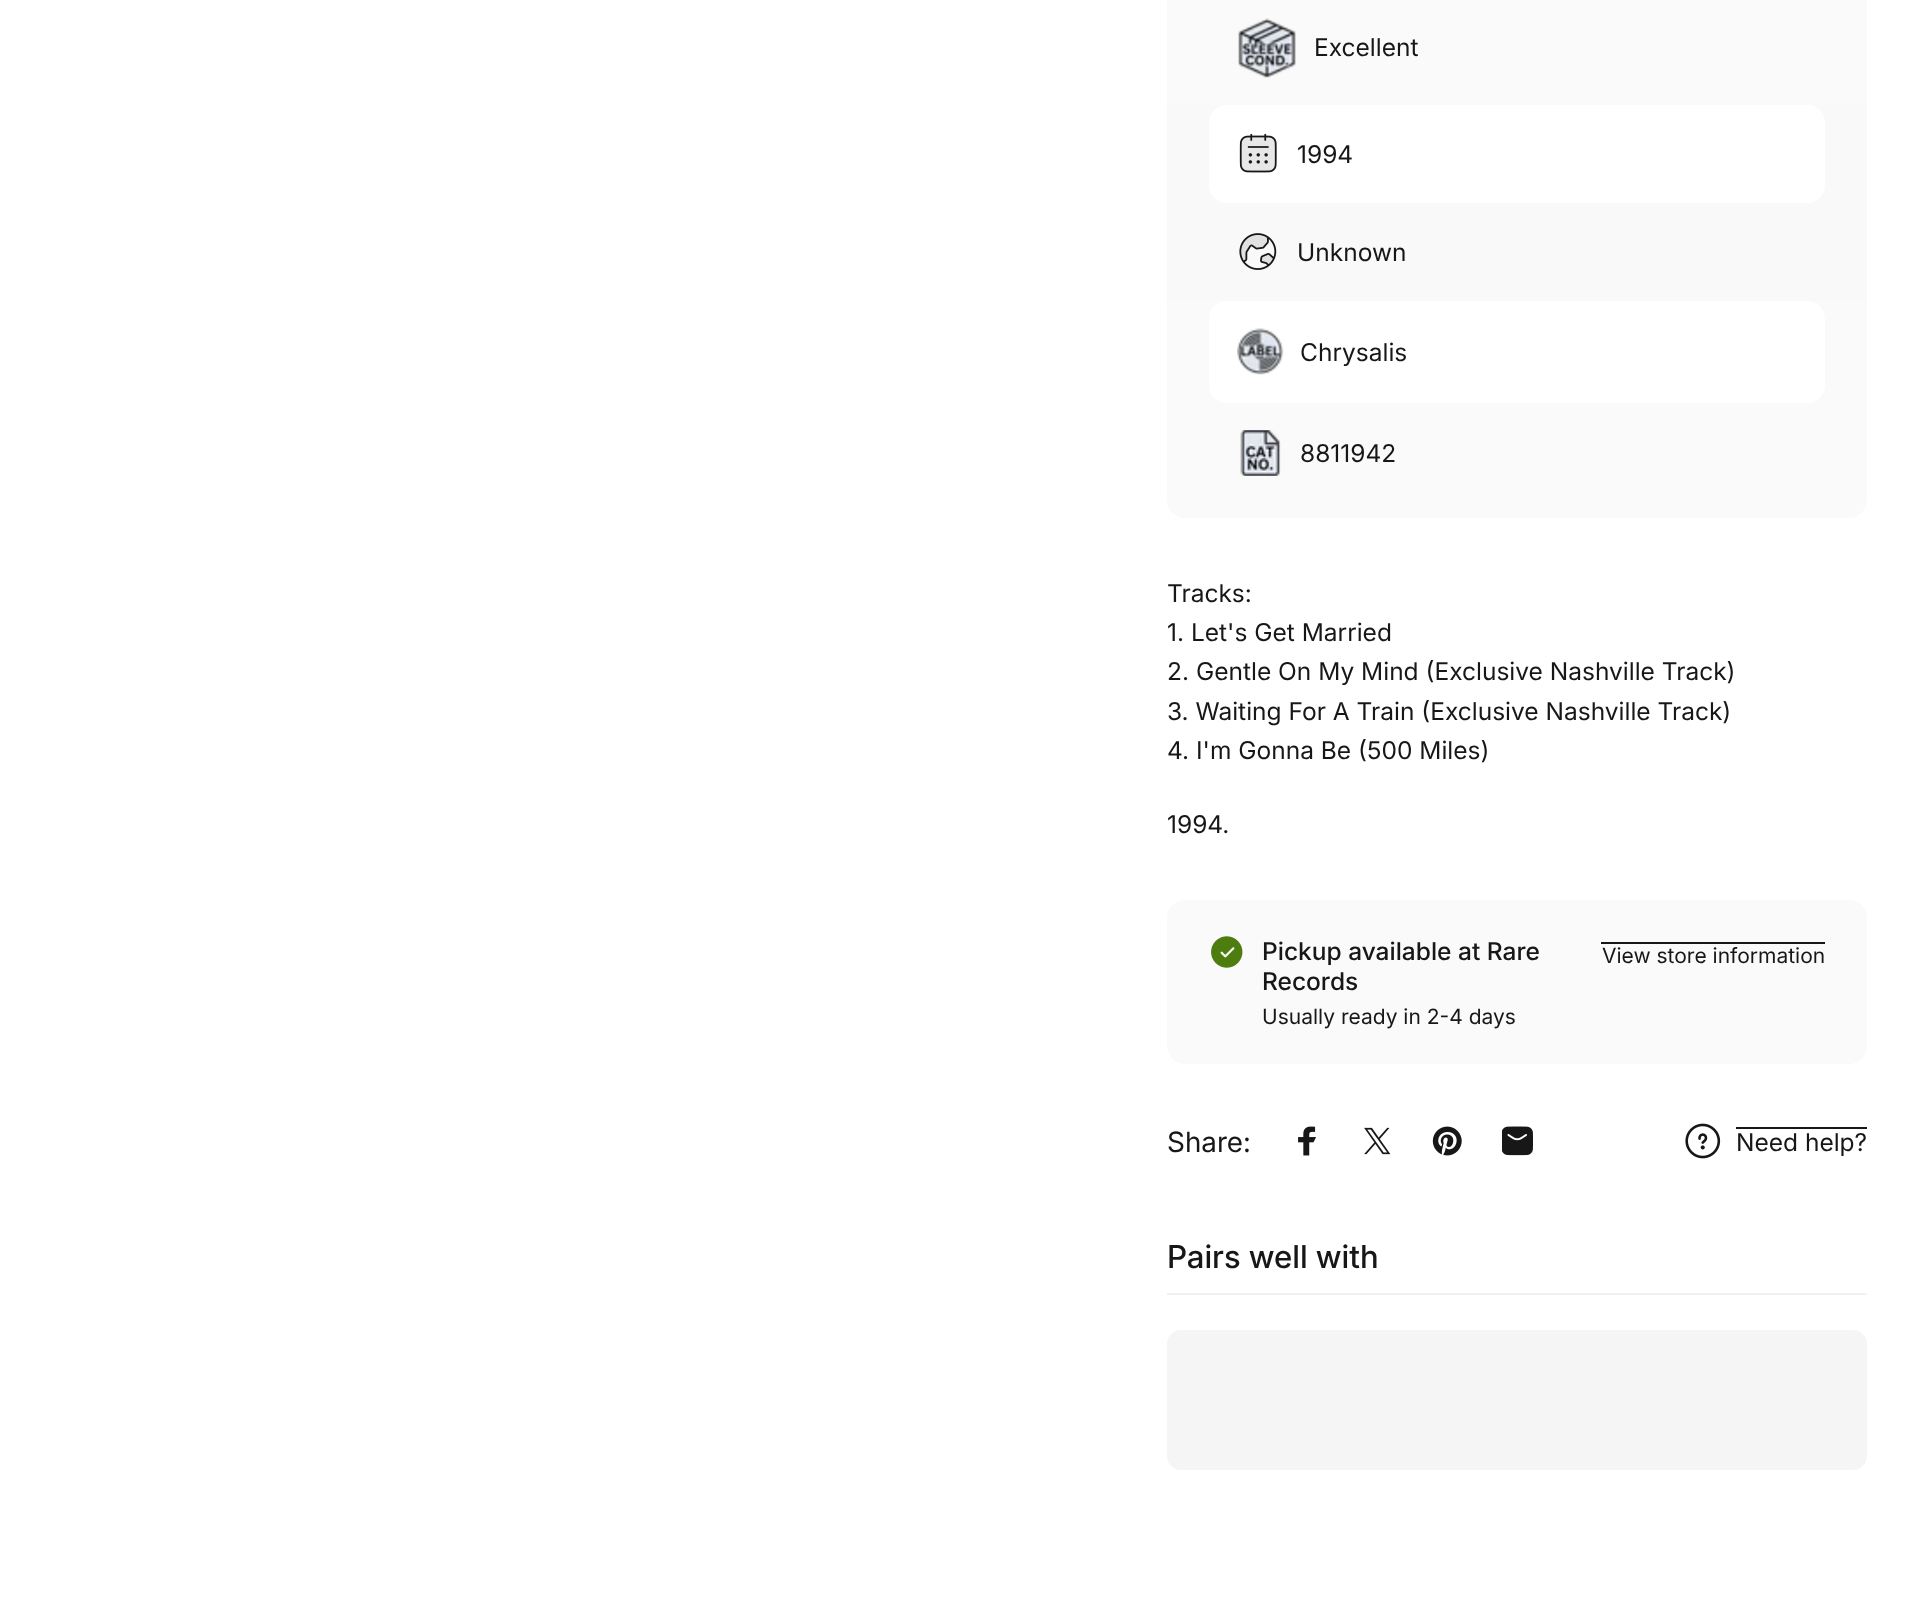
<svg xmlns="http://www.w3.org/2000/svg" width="1929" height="1620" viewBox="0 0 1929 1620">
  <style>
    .t1 { font: 24.5px Inter; fill: #171717; }
    .t2 { font: 500 24.5px Inter; fill: #171717; }
    .t3 { font: 21px Inter; fill: #171717; }
    .t4 { font: 28px 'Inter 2'; fill: #171717; }
    .t5 { font: 500 31.5px 'Inter 2'; fill: #171717; }
  </style>
  <defs>
    <linearGradient id="g1" gradientUnits="userSpaceOnUse" x1="1197" y1="1158" x2="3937" y2="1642"><stop offset="0.4" stop-color="#f5f5f5"/><stop offset="0.63" stop-color="#e5e5e5"/><stop offset="0.79" stop-color="#f5f5f5"/></linearGradient>
  </defs>
  <rect width="100%" height="100%" fill="#fff"/>
  <rect x="1167" y="0" width="700" height="105" fill="#fafafa"/>
  <image x="1238" y="18" width="58" height="60" href="images/1.png"/>
  <text x="1314" y="56" class="t1">Excellent</text>
  <rect x="1167" y="105" width="700" height="196" fill="#f9f9f9"/>
  <rect x="1209" y="105" width="616" height="98" rx="18" fill="#fff"/>
  <image x="1239" y="133" width="38" height="40" href="images/2.png"/>
  <text x="1297" y="163" class="t1">1994</text>
  <image x="1239" y="233" width="38" height="37" href="images/3.png"/>
  <text x="1297" y="261" class="t1">Unknown</text>
  <rect x="1167" y="301" width="700" height="102" fill="#fafafa"/>
  <rect x="1209" y="301" width="616" height="102" rx="18" fill="#fff"/>
  <image x="1237" y="328" width="47" height="47" href="images/4.png"/>
  <text x="1300" y="361" class="t1">Chrysalis</text>
  <path d="M1167 403H1867V500C1867 510 1859 518 1849 518H1185C1175 518 1167 510 1167 500Z" fill="#fafafa"/>
  <image x="1240" y="430" width="41" height="46" href="images/5.png"/>
  <text x="1300" y="462" class="t1">8811942</text>
  <text x="1167" y="602" class="t1">Tracks:</text>
  <text x="1167" y="641" class="t1">1. Let's Get Married</text>
  <text x="1167" y="680" class="t1">2. Gentle On My Mind (Exclusive Nashville Track)</text>
  <text x="1167" y="720" class="t1">3. Waiting For A Train (Exclusive Nashville Track)</text>
  <text x="1167" y="759" class="t1">4. I'm Gonna Be (500 Miles)</text>
  <text x="1167" y="833" class="t1">1994.</text>
  <rect x="1167" y="900" width="700" height="164" rx="18" fill="#fafafa"/>
  <image x="1211" y="936" width="32" height="32" href="images/6.png"/>
  <text x="1262" y="960" class="t2">Pickup available at Rare</text>
  <text x="1262" y="990" class="t2">Records</text>
  <text x="1262" y="1024" class="t3">Usually ready in 2-4 days</text>
  <text x="1602" y="963" class="t3">View store information</text>
  <rect x="1601" y="942" width="224" height="2" fill="#171717"/>
  <text x="1167" y="1152" class="t4">Share:</text>
  <image x="1298" y="1126" width="18" height="30" href="images/7.png"/>
  <image x="1364" y="1127" width="27" height="28" href="images/8.png"/>
  <image x="1432" y="1126" width="30" height="30" href="images/9.png"/>
  <image x="1502" y="1126" width="31" height="30" href="images/10.png"/>
  <image x="1685" y="1123" width="36" height="36" href="images/11.png"/>
  <rect x="1736" y="1127" width="131" height="2" fill="#171717"/>
  <text x="1736" y="1151" class="t1">Need help?</text>
  <rect x="1167" y="1293" width="700" height="2" fill="#f1f1f1"/>
  <text x="1167" y="1268" class="t5">Pairs well with</text>
  <rect x="1167" y="1330" width="700" height="140" rx="14" fill="url(#g1)"/>
</svg>
